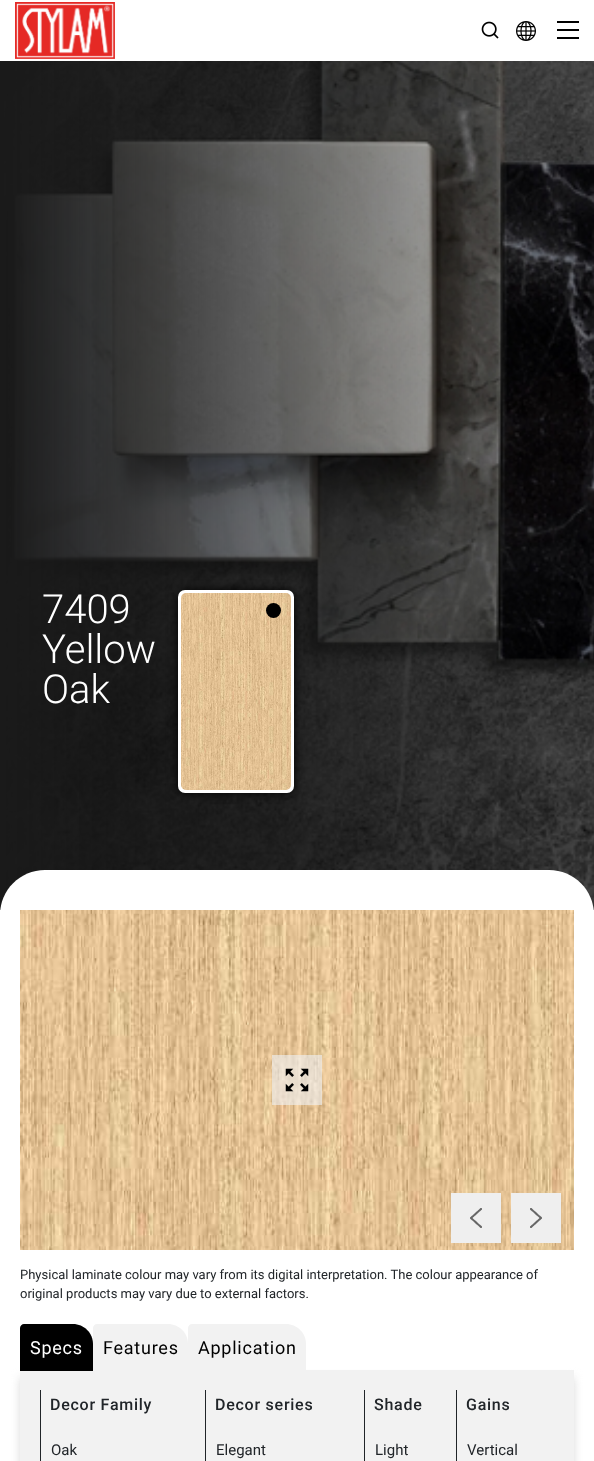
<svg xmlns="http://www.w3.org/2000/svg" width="594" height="1461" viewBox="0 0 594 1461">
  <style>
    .t1 { font: 300 40px Roboto; fill: #fff; }
    .t2 { font: 13px Roboto; fill: #212529; }
    .t3 { font: 18px Roboto; letter-spacing: 0.75px; fill: #fff; }
    .t4 { font: 18px Roboto; letter-spacing: 0.75px; fill: #000; }
    .t5 { font: 500 16px Roboto; letter-spacing: 0.75px; fill: #212529; }
    .t6 { font: 15px Roboto; fill: #212529; }
  </style>
  <rect width="100%" height="100%" fill="#fff"/>
  <image x="15" y="2" width="100" height="57" href="images/1.png"/>
  <image x="481" y="21" width="18" height="18" href="images/2.png"/>
  <image x="516" y="21" width="20" height="20" href="images/3.png"/>
  <rect x="557" y="29" width="22" height="2" fill="#000"/>
  <rect x="557" y="21" width="22" height="2" fill="#000"/>
  <rect x="557" y="37" width="22" height="2" fill="#000"/>
  <image x="0" y="61" width="594" height="849" href="images/4.png"/>
  <text x="42" y="623" class="t1">7409</text>
  <text x="42" y="663" class="t1">Yellow</text>
  <text x="42" y="703" class="t1">Oak</text>
  <rect x="178" y="590" width="116" height="203" rx="7" fill="#000" filter="blur(5px)"/>
  <rect x="178" y="590" width="116" height="203" rx="7" fill="#fff"/>
  <image x="181" y="593" width="110" height="197" href="images/5.png"/>
  <circle cx="273.5" cy="610.5" r="7.5" fill="#000"/>
  <path d="M45 870H549C574 870 594 890 594 915V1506H0V915C0 890 20 870 45 870Z" fill="#fff"/>
  <image x="20" y="910" width="554" height="340" href="images/6.png"/>
  <rect x="272" y="1055" width="50" height="50" fill="#eeeeeea6"/>
  <image x="285" y="1068" width="24" height="24" href="images/7.png"/>
  <rect x="451" y="1193" width="50" height="50" fill="#efefef"/>
  <image x="470" y="1208" width="12" height="20" href="images/8.png"/>
  <rect x="511" y="1193" width="50" height="50" fill="#efefef"/>
  <image x="530" y="1208" width="12" height="20" href="images/9.png"/>
  <text x="20" y="1279" class="t2">Physical laminate colour may vary from its digital interpretation. The colour appearance of</text>
  <text x="20" y="1298" class="t2">original products may vary due to external factors.</text>
  <rect x="20" y="1378" width="554" height="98" fill="#dbdbdb" filter="blur(5px)"/>
  <rect x="20" y="1370" width="554" height="91" fill="#f2f2f2"/>
  <path d="M24 1324H73C84 1324 93 1333 93 1344V1371H20V1328C20 1326 22 1324 24 1324Z" fill="#000"/>
  <text x="30" y="1354" class="t3">Specs</text>
  <path d="M97 1324H168C179 1324 188 1333 188 1344V1371H93V1328C93 1326 95 1324 97 1324Z" fill="#f2f2f2"/>
  <text x="103" y="1354" class="t4">Features</text>
  <path d="M192 1324H286C297 1324 306 1333 306 1344V1371H188V1328C188 1326 190 1324 192 1324Z" fill="#f2f2f2"/>
  <text x="198" y="1354" class="t4">Application</text>
  <text x="50" y="1410" class="t5">Decor Family</text>
  <text x="215" y="1410" class="t5">Decor series</text>
  <text x="374" y="1410" class="t5">Shade</text>
  <text x="466" y="1410" class="t5">Gains</text>
  <rect x="40" y="1390" width="1" height="71" fill="#212529"/>
  <text x="51" y="1455" class="t6">Oak</text>
  <rect x="205" y="1390" width="1" height="71" fill="#212529"/>
  <text x="216" y="1455" class="t6">Elegant</text>
  <rect x="364" y="1390" width="1" height="71" fill="#212529"/>
  <text x="375" y="1455" class="t6">Light</text>
  <rect x="456" y="1390" width="1" height="71" fill="#212529"/>
  <text x="467" y="1455" class="t6">Vertical</text>
</svg>
